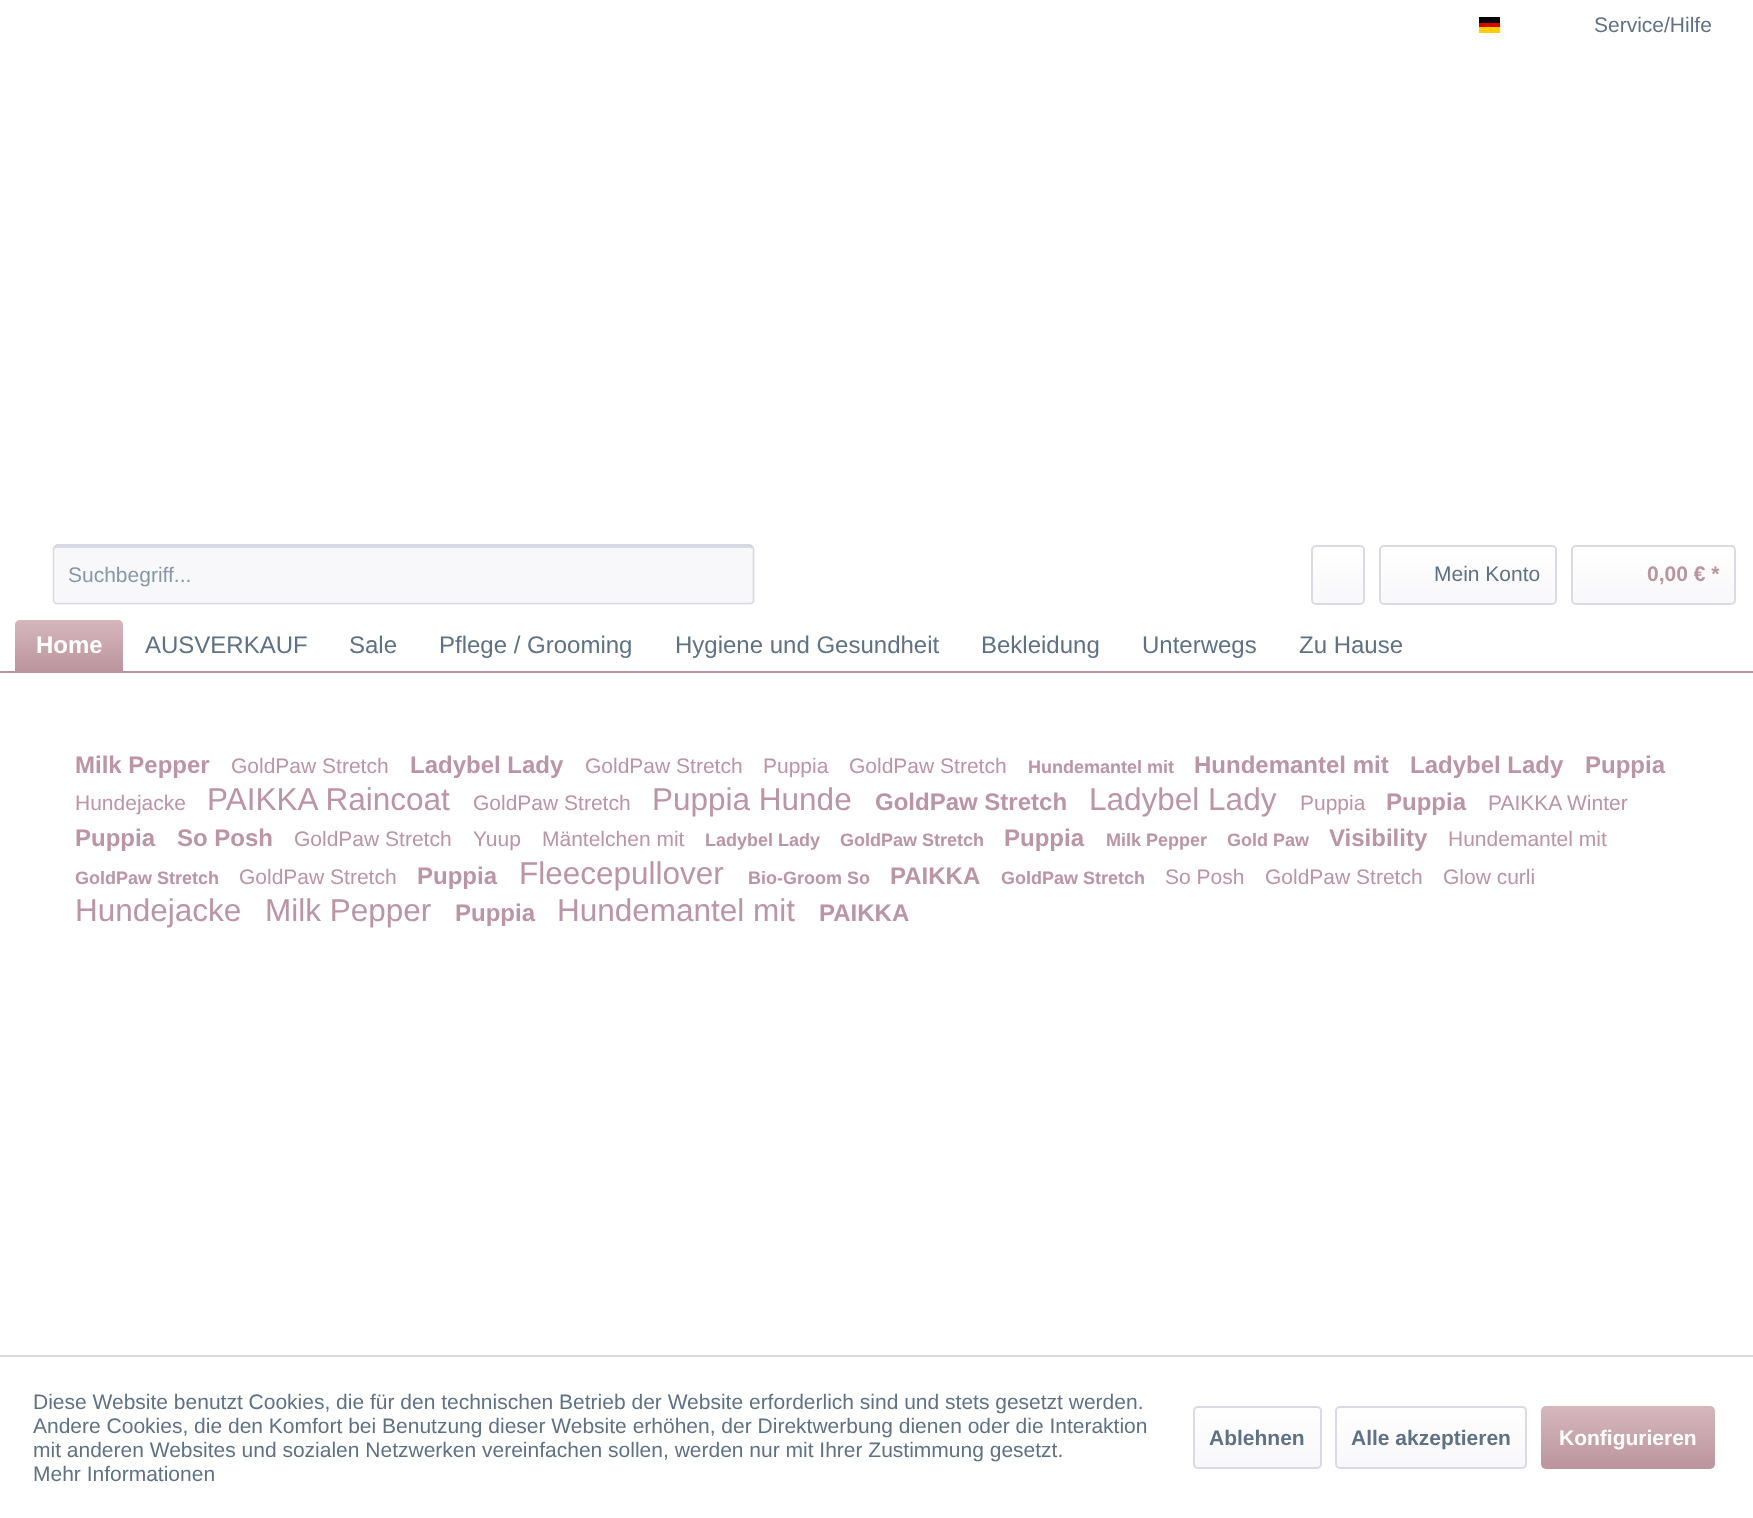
<svg xmlns="http://www.w3.org/2000/svg" width="1753" height="1518" viewBox="0 0 1753 1518">
  <style>
    .t1 { font: 21px Liberation Sans; fill: #5f7285; }
    .t2 { font: 21px Liberation Sans; fill: #8798a9; }
    .t3 { font: bold 21px Liberation Sans; fill: #bb949d; }
    .t4 { font: bold 24px Liberation Sans; fill: #fff; }
    .t5 { font: 24px Liberation Sans; fill: #5f7285; }
    .t6 { font: bold 24px Liberation Sans; fill: #bb94a6; }
    .t7 { font: 21px Liberation Sans; fill: #bb94a6; }
    .t8 { font: bold 18px Liberation Sans; fill: #bb94a6; }
    .t9 { font: 31.5px Liberation Sans; fill: #bb94a6; }
    .t10 { font: bold 21px Liberation Sans; fill: #5f7285; }
    .t11 { font: bold 21px Liberation Sans; fill: #fff; }
  </style>
  <defs>
    <linearGradient id="g1" gradientUnits="userSpaceOnUse" x1="1338" y1="546" x2="1338" y2="603"><stop offset="0" stop-color="#fff"/><stop offset="1" stop-color="#f8f8fa"/></linearGradient>
    <linearGradient id="g2" gradientUnits="userSpaceOnUse" x1="1468" y1="546" x2="1468" y2="603"><stop offset="0" stop-color="#fff"/><stop offset="1" stop-color="#f8f8fa"/></linearGradient>
    <linearGradient id="g3" gradientUnits="userSpaceOnUse" x1="1653" y1="546" x2="1653" y2="603"><stop offset="0" stop-color="#fff"/><stop offset="1" stop-color="#f8f8fa"/></linearGradient>
    <linearGradient id="g4" gradientUnits="userSpaceOnUse" x1="69" y1="620" x2="69" y2="671"><stop offset="0" stop-color="#d6b7be"/><stop offset="1" stop-color="#bb949d"/></linearGradient>
    <linearGradient id="g5" gradientUnits="userSpaceOnUse" x1="1257" y1="1407" x2="1257" y2="1467"><stop offset="0" stop-color="#fff"/><stop offset="1" stop-color="#f8f8fa"/></linearGradient>
    <linearGradient id="g6" gradientUnits="userSpaceOnUse" x1="1431" y1="1407" x2="1431" y2="1467"><stop offset="0" stop-color="#fff"/><stop offset="1" stop-color="#f8f8fa"/></linearGradient>
    <linearGradient id="g7" gradientUnits="userSpaceOnUse" x1="1628" y1="1406" x2="1628" y2="1469"><stop offset="0" stop-color="#d6b7be"/><stop offset="1" stop-color="#bb949d"/></linearGradient>
  </defs>
  <rect width="100%" height="100%" fill="#fff"/>
  <rect x="1479" y="17" width="21" height="6" fill="#000"/>
  <rect x="1479" y="23" width="21" height="4" fill="#d00"/>
  <rect x="1479" y="27" width="21" height="6" fill="#ffce00"/>
  <text x="1594" y="32" class="t1">Service/Hilfe</text>
  <rect x="53" y="545" width="702" height="60" rx="5" fill="#f8f8fa"/>
  <path d="M57 548H750C752 548 753 549 753 550C753 548 752 546 750 546H57C55 546 54 548 54 550C54 549 55 548 57 548Z" fill="#dadae5"/>
  <path d="M54.5 546.5L57 545H750L752.5 546.5" fill="none" stroke="#cbcbdb" stroke-width="1.5"/>
  <path d="M752.5 546.5L753.5 548.5V601C753 602.5 752 603.5 750.5 603.5H56.5C55 603.5 54 602.5 53.5 601V548.5L54.5 546.5" fill="none" stroke="#dadae5" stroke-width="1.5"/>
  <text x="68" y="582" class="t2">Suchbegriff...</text>
  <rect x="1313" y="546" width="51" height="57" rx="3" fill="url(#g1)"/>
  <rect x="1312" y="546" width="52" height="58" rx="4" fill="none" stroke="#dadae5" stroke-width="2"/>
  <rect x="1380" y="546" width="176" height="57" rx="3" fill="url(#g2)"/>
  <rect x="1380" y="546" width="176" height="58" rx="4" fill="none" stroke="#dadae5" stroke-width="2"/>
  <text x="1434" y="581" class="t1">Mein Konto</text>
  <rect x="1572" y="546" width="162" height="57" rx="3" fill="url(#g3)"/>
  <rect x="1572" y="546" width="163" height="58" rx="4" fill="none" stroke="#dadae5" stroke-width="2"/>
  <text x="1647" y="581" class="t3">0,00 € *</text>
  <rect x="0" y="671" width="1753" height="2" fill="#bb949d"/>
  <path d="M20 620H118C121 620 123 622 123 625V671H15V625C15 622 17 620 20 620Z" fill="url(#g4)"/>
  <text x="36" y="653" class="t4">Home</text>
  <text x="145" y="653" class="t5">AUSVERKAUF</text>
  <text x="349" y="653" class="t5">Sale</text>
  <text x="439" y="653" class="t5">Pflege / Grooming</text>
  <text x="675" y="653" class="t5">Hygiene und Gesundheit</text>
  <text x="981" y="653" class="t5">Bekleidung</text>
  <text x="1142" y="653" class="t5">Unterwegs</text>
  <text x="1299" y="653" class="t5">Zu Hause</text>
  <text x="75" y="773" class="t6">Milk Pepper</text>
  <text x="231" y="773" class="t7">GoldPaw Stretch</text>
  <text x="410" y="773" class="t6">Ladybel Lady</text>
  <text x="585" y="773" class="t7">GoldPaw Stretch</text>
  <text x="763" y="773" class="t7">Puppia</text>
  <text x="849" y="773" class="t7">GoldPaw Stretch</text>
  <text x="1028" y="773" class="t8">Hundemantel mit</text>
  <text x="1194" y="773" class="t6">Hundemantel mit</text>
  <text x="1410" y="773" class="t6">Ladybel Lady</text>
  <text x="1585" y="773" class="t6">Puppia</text>
  <text x="75" y="810" class="t7">Hundejacke</text>
  <text x="207" y="810" class="t9">PAIKKA Raincoat</text>
  <text x="473" y="810" class="t7">GoldPaw Stretch</text>
  <text x="652" y="810" class="t9">Puppia Hunde</text>
  <text x="875" y="810" class="t6">GoldPaw Stretch</text>
  <text x="1089" y="810" class="t9">Ladybel Lady</text>
  <text x="1300" y="810" class="t7">Puppia</text>
  <text x="1386" y="810" class="t6">Puppia</text>
  <text x="1488" y="810" class="t7">PAIKKA Winter</text>
  <text x="75" y="846" class="t6">Puppia</text>
  <text x="177" y="846" class="t6">So Posh</text>
  <text x="294" y="846" class="t7">GoldPaw Stretch</text>
  <text x="473" y="846" class="t7">Yuup</text>
  <text x="542" y="846" class="t7">Mäntelchen mit</text>
  <text x="705" y="846" class="t8">Ladybel Lady</text>
  <text x="840" y="846" class="t8">GoldPaw Stretch</text>
  <text x="1004" y="846" class="t6">Puppia</text>
  <text x="1106" y="846" class="t8">Milk Pepper</text>
  <text x="1227" y="846" class="t8">Gold Paw</text>
  <text x="1329" y="846" class="t6">Visibility</text>
  <text x="1448" y="846" class="t7">Hundemantel mit</text>
  <text x="75" y="884" class="t8">GoldPaw Stretch</text>
  <text x="239" y="884" class="t7">GoldPaw Stretch</text>
  <text x="417" y="884" class="t6">Puppia</text>
  <text x="519" y="884" class="t9">Fleecepullover</text>
  <text x="748" y="884" class="t8">Bio-Groom So</text>
  <text x="890" y="884" class="t6">PAIKKA</text>
  <text x="1001" y="884" class="t8">GoldPaw Stretch</text>
  <text x="1165" y="884" class="t7">So Posh</text>
  <text x="1265" y="884" class="t7">GoldPaw Stretch</text>
  <text x="1443" y="884" class="t7">Glow curli</text>
  <text x="75" y="921" class="t9">Hundejacke</text>
  <text x="265" y="921" class="t9">Milk Pepper</text>
  <text x="455" y="921" class="t6">Puppia</text>
  <text x="557" y="921" class="t9">Hundemantel mit</text>
  <text x="819" y="921" class="t6">PAIKKA</text>
  <rect x="0" y="1355" width="1753" height="2" fill="#dadae5"/>
  <text x="33" y="1409" class="t1">Diese Website benutzt Cookies, die für den technischen Betrieb der Website erforderlich sind und stets gesetzt werden.</text>
  <text x="33" y="1433" class="t1">Andere Cookies, die den Komfort bei Benutzung dieser Website erhöhen, der Direktwerbung dienen oder die Interaktion</text>
  <text x="33" y="1457" class="t1">mit anderen Websites und sozialen Netzwerken vereinfachen sollen, werden nur mit Ihrer Zustimmung gesetzt.</text>
  <text x="33" y="1481" class="t1">Mehr Informationen</text>
  <rect x="1194" y="1407" width="126" height="60" rx="3" fill="url(#g5)"/>
  <rect x="1194" y="1407" width="127" height="61" rx="4" fill="none" stroke="#dadae5" stroke-width="2"/>
  <text x="1209" y="1445" class="t10">Ablehnen</text>
  <rect x="1337" y="1407" width="189" height="60" rx="3" fill="url(#g6)"/>
  <rect x="1336" y="1407" width="190" height="61" rx="4" fill="none" stroke="#dadae5" stroke-width="2"/>
  <text x="1351" y="1445" class="t10">Alle akzeptieren</text>
  <rect x="1541" y="1406" width="174" height="63" rx="5" fill="url(#g7)"/>
  <text x="1559" y="1445" class="t11">Konfigurieren</text>
</svg>
